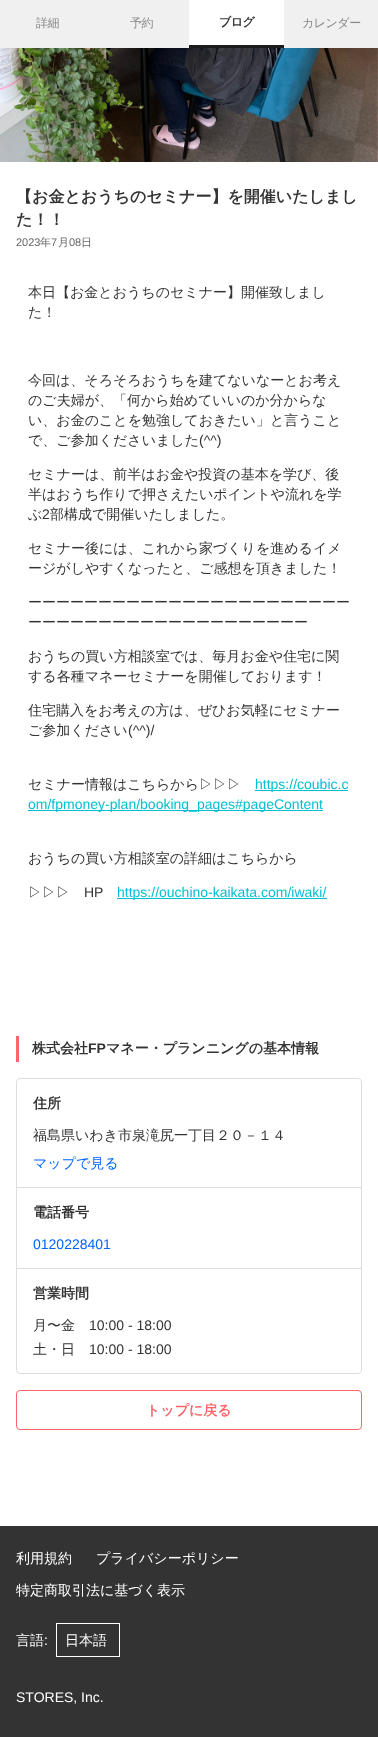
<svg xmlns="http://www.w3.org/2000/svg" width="378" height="1737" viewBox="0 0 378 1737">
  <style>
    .t1 { font: 500 12px WenQuanYi Zen Hei; letter-spacing: -0.5px; fill: #888; }
    .t2 { font: bold 12px WenQuanYi Zen Hei; letter-spacing: -0.5px; fill: #333; }
    .t3 { font: bold 16px WenQuanYi Zen Hei; fill: #333; }
    .t4 { font: 11px Liberation Sans; fill: #666; }
    .t5 { font: 500 11px WenQuanYi Zen Hei; fill: #666; }
    .t6 { font: 500 14px WenQuanYi Zen Hei; fill: #333; }
    .t7 { font: 14px Liberation Sans; fill: #333; }
    .t8 { font: 14px Liberation Sans; fill: #02bfd3; }
    .t9 { font: bold 14px WenQuanYi Zen Hei; fill: #333; }
    .t10 { font: bold 14px Liberation Sans; fill: #333; }
    .t11 { font: 500 14px WenQuanYi Zen Hei; fill: #06f; }
    .t12 { font: 14px Liberation Sans; fill: #06f; }
    .t13 { font: bold 14px WenQuanYi Zen Hei; fill: #ff6469; }
    .t14 { font: 500 14px WenQuanYi Zen Hei; fill: #fff; }
    .t15 { font: 14px Liberation Sans; fill: #fff; }
  </style>
  <rect width="100%" height="100%" fill="#fff"/>
  <rect x="0" y="0" width="189" height="48" fill="#f0f0f0"/>
  <text x="36" y="27" class="t1">詳細</text>
  <text x="130" y="27" class="t1">予約</text>
  <rect x="189" y="45" width="95" height="3" fill="#1b1b1b"/>
  <text x="219" y="26" class="t2">ブログ</text>
  <rect x="284" y="0" width="94" height="48" fill="#f0f0f0"/>
  <text x="302" y="27" class="t1">カレンダー</text>
  <image x="0" y="48" width="378" height="114" href="images/1.png"/>
  <text x="16" y="202" class="t3">【お金とおうちのセミナー】を開催いたしまし</text>
  <text x="16" y="225" class="t3">た！！</text>
  <text x="16" y="246" class="t4">2023</text>
  <text x="40" y="246" class="t5">年</text>
  <text x="51" y="246" class="t4">7</text>
  <text x="58" y="246" class="t5">月</text>
  <text x="69" y="246" class="t4">08</text>
  <text x="81" y="246" class="t5">日</text>
  <text x="28" y="297" class="t6">本日【お金とおうちのセミナー】開催致しまし</text>
  <text x="28" y="317" class="t6">た！</text>
  <text x="28" y="385" class="t6">今回は、そろそろおうちを建てないなーとお考え</text>
  <text x="28" y="405" class="t6">のご夫婦が、「何から始めていいのか分からな</text>
  <text x="28" y="425" class="t6">い、お金のことを勉強しておきたい」と言うこと</text>
  <text x="28" y="445" class="t6">で、ご参加くださいました</text>
  <text x="199" y="445" class="t7">(^^)</text>
  <text x="28" y="479" class="t6">セミナーは、前半はお金や投資の基本を学び、後</text>
  <text x="28" y="499" class="t6">半はおうち作りで押さえたいポイントや流れを学</text>
  <text x="28" y="519" class="t6">ぶ</text>
  <text x="42" y="519" class="t7">2</text>
  <text x="50" y="519" class="t6">部構成で開催いたしました。</text>
  <text x="28" y="553" class="t6">セミナー後には、これから家づくりを進めるイメ</text>
  <text x="28" y="573" class="t6">ージがしやすくなったと、ご感想を頂きました！</text>
  <text x="28" y="607" class="t6">ーーーーーーーーーーーーーーーーーーーーーーー</text>
  <text x="28" y="627" class="t6">ーーーーーーーーーーーーーーーーーーーー</text>
  <text x="28" y="661" class="t6">おうちの買い方相談室では、毎月お金や住宅に関</text>
  <text x="28" y="681" class="t6">する各種マネーセミナーを開催しております！</text>
  <text x="28" y="715" class="t6">住宅購入をお考えの方は、ぜひお気軽にセミナー</text>
  <text x="28" y="735" class="t6">ご参加ください</text>
  <text x="128" y="735" class="t7">(^^)/</text>
  <text x="28" y="789" class="t6">セミナー情報はこちらから▷▷▷</text>
  <rect x="255" y="790" width="93" height="1" fill="#02bfd3"/>
  <text x="255" y="789" class="t8">https://coubic.c</text>
  <rect x="28" y="810" width="295" height="1" fill="#02bfd3"/>
  <text x="28" y="809" class="t8">om/fpmoney-plan/booking_pages#pageContent</text>
  <text x="28" y="863" class="t6">おうちの買い方相談室の詳細はこちらから</text>
  <text x="28" y="897" class="t6">▷▷▷</text>
  <text x="84" y="897" class="t7">HP</text>
  <rect x="117" y="898" width="210" height="1" fill="#02bfd3"/>
  <text x="117" y="897" class="t8">https://ouchino-kaikata.com/iwaki/</text>
  <rect x="16" y="1036" width="3" height="26" fill="#ff6469"/>
  <text x="32" y="1053" class="t9">株式会社</text>
  <text x="88" y="1053" class="t10">FP</text>
  <text x="106" y="1053" class="t9">マネー・プランニングの基本情報</text>
  <rect x="16.5" y="1078.5" width="345" height="295" rx="3.5" fill="none" stroke="#ddd"/>
  <text x="33" y="1108" class="t9">住所</text>
  <text x="33" y="1140" class="t6">福島県いわき市泉滝尻一丁目２０－１４</text>
  <text x="33" y="1168" class="t11">マップで見る</text>
  <rect x="17" y="1187" width="344" height="1" fill="#ddd"/>
  <text x="33" y="1217" class="t9">電話番号</text>
  <text x="33" y="1249" class="t12">0120228401</text>
  <rect x="17" y="1268" width="344" height="1" fill="#ddd"/>
  <text x="33" y="1298" class="t9">営業時間</text>
  <text x="33" y="1330" class="t6">月〜金</text>
  <text x="89" y="1330" class="t7">10:00 - 18:00</text>
  <text x="33" y="1354" class="t6">土・日</text>
  <text x="89" y="1354" class="t7">10:00 - 18:00</text>
  <rect x="16.5" y="1390.5" width="345" height="39" rx="3.5" fill="none" stroke="#ff6469"/>
  <text x="146" y="1415" class="t13">トップに戻る</text>
  <rect x="0" y="1526" width="378" height="211" fill="#333"/>
  <text x="16" y="1563" class="t14">利用規約</text>
  <text x="96" y="1563" class="t14">プライバシーポリシー</text>
  <text x="16" y="1595" class="t14">特定商取引法に基づく表示</text>
  <text x="16" y="1645" class="t14">言語</text>
  <text x="44" y="1645" class="t15">:</text>
  <rect x="56.5" y="1623.5" width="63" height="33" fill="none" stroke="#fff"/>
  <text x="65" y="1645" class="t14">日本語</text>
  <text x="16" y="1702" class="t15">STORES, Inc.</text>
</svg>
